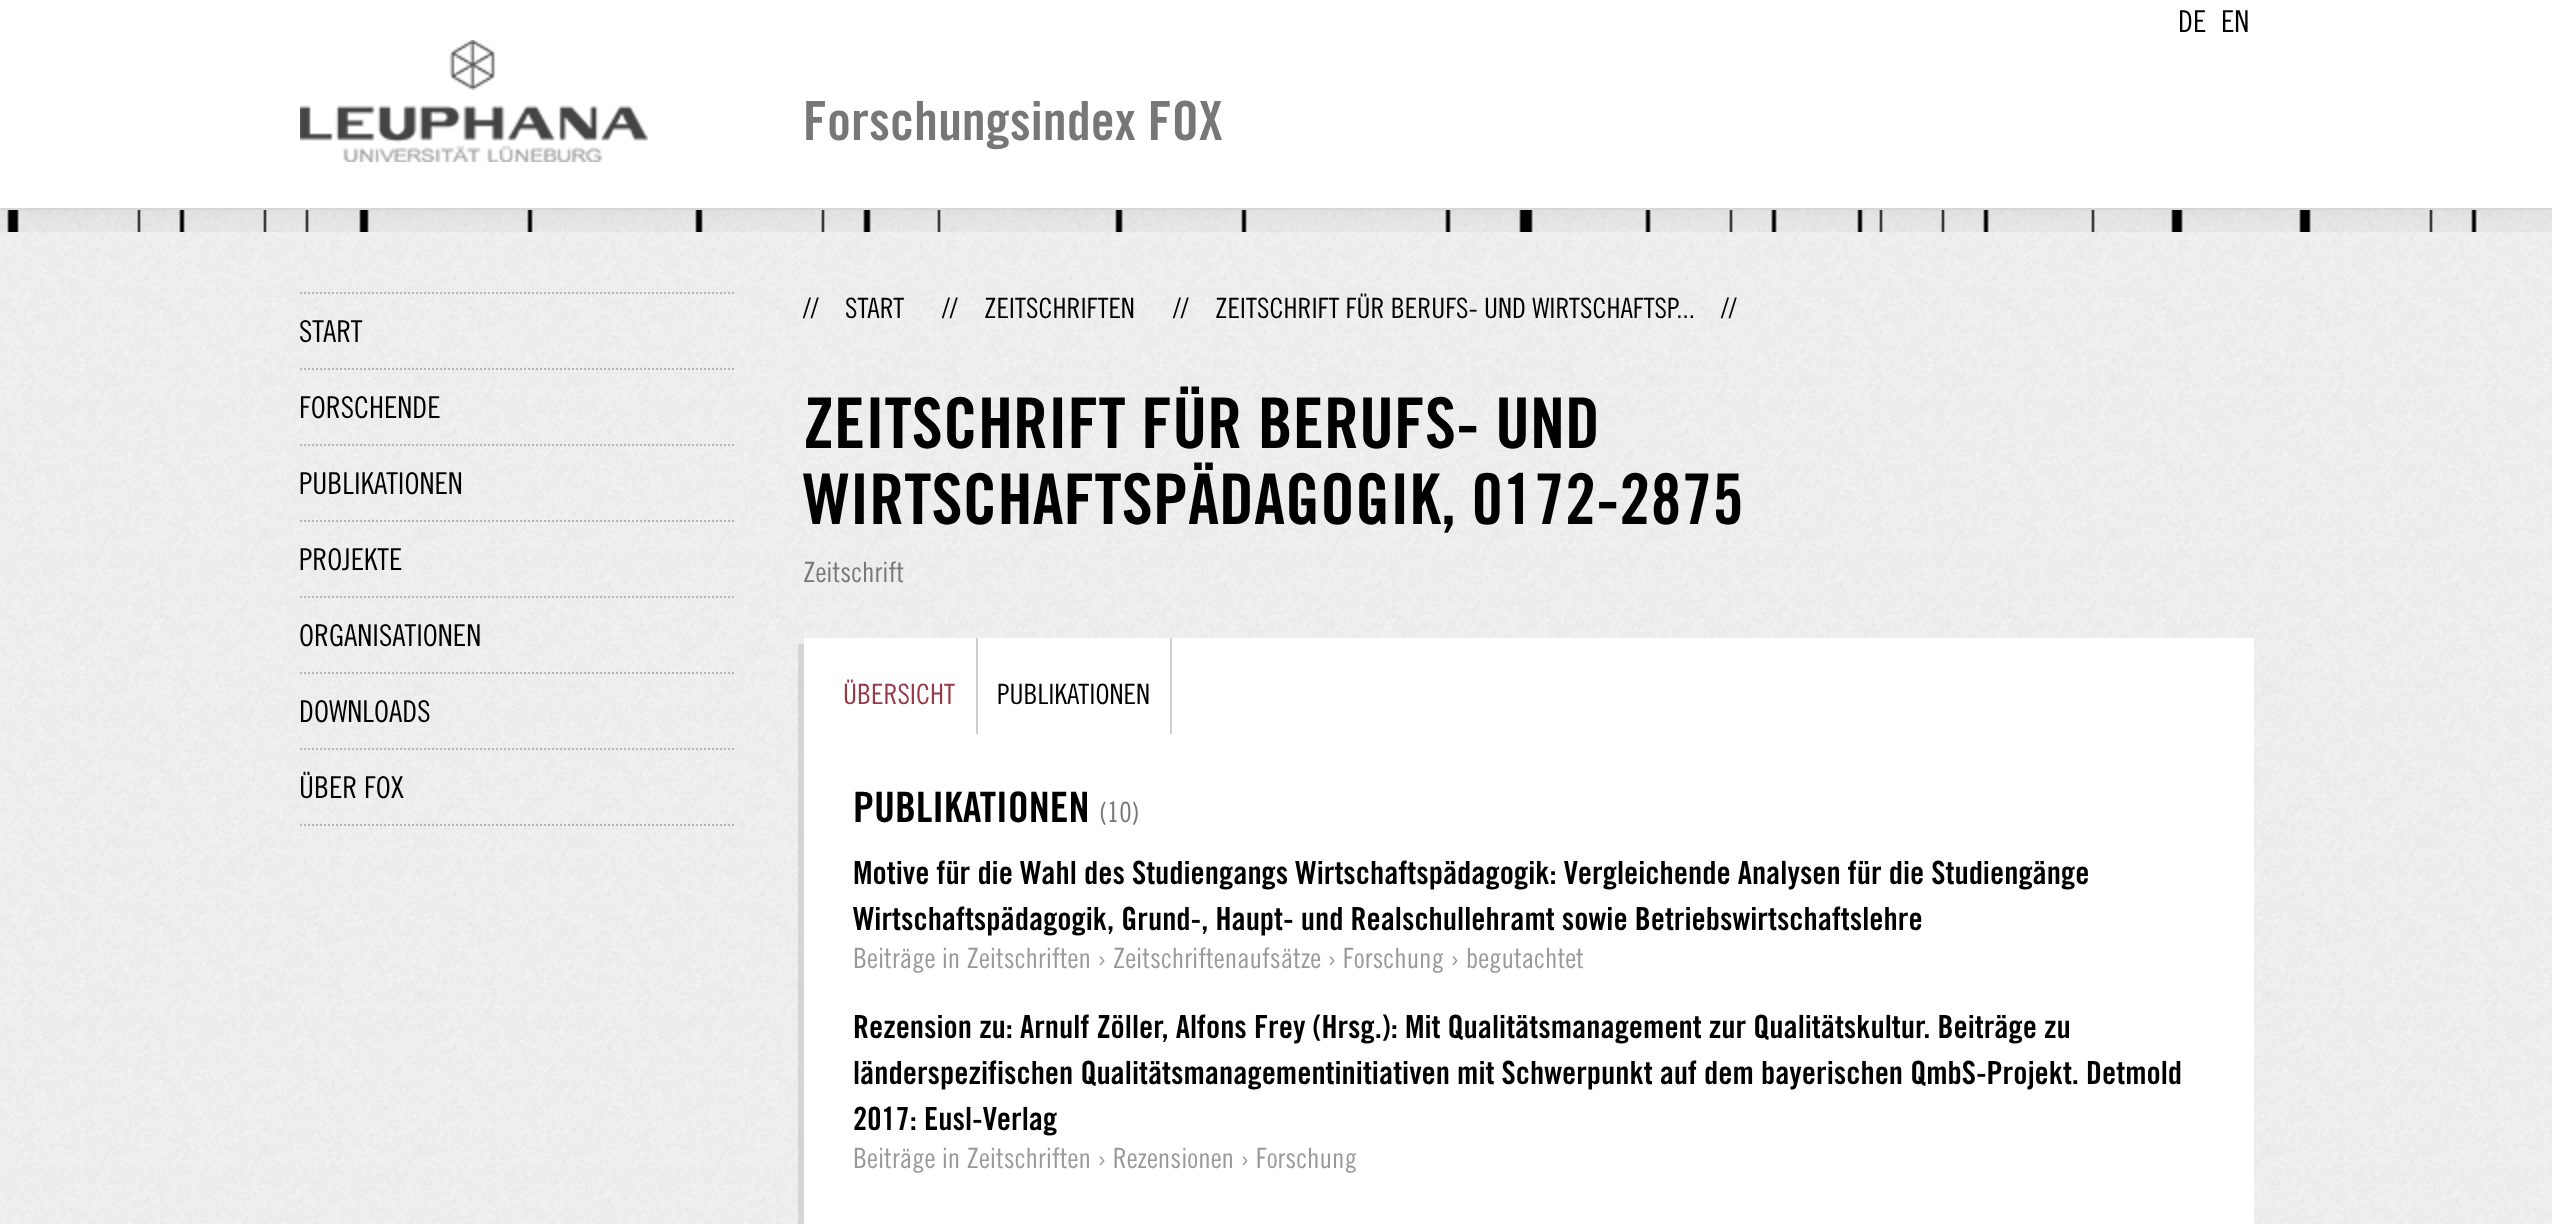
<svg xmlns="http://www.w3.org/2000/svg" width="2552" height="1224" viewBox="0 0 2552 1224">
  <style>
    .t1 { font: 30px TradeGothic; fill: #000; }
    .t2 { font: bold 54px 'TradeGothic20'; fill: #777; }
    .t3 { font: 28px TradeGothic; fill: #000; }
    .t4 { font: bold 70px 'TradeGothic20'; fill: #000; }
    .t5 { font: 28px TradeGothic; fill: #777; }
    .t6 { font: 28px TradeGothic; fill: #973948; }
    .t7 { font: bold 42px 'TradeGothic20'; fill: #000; }
    .t8 { font: bold 32px 'TradeGothic20'; fill: #000; }
    .t9 { font: 28px TradeGothic; fill: #999; }
  </style>
  <rect width="100%" height="100%" fill="#eee"/>
  <image x="1" y="232" width="2551" height="992" href="images/1.png"/>
  <rect x="0" y="0" width="2552" height="208" fill="#fff"/>
  <rect x="0" y="208" width="2552" height="2" fill="#d6d6d6"/>
  <text x="2178" y="32" class="t1">DE</text>
  <text x="2221" y="32" class="t1">EN</text>
  <image x="300" y="40" width="348" height="122" href="images/2.png"/>
  <text x="803" y="140" class="t2">Forschungsindex FOX</text>
  <image x="0" y="210" width="2552" height="22" href="images/3.png"/>
  <path d="M300 825H734" fill="none" stroke="#b5b5b5" stroke-width="2" stroke-dasharray="2 2"/>
  <path d="M300 293H734" fill="none" stroke="#b5b5b5" stroke-width="2" stroke-dasharray="2 2"/>
  <text x="299" y="342" class="t1">START</text>
  <path d="M300 369H734" fill="none" stroke="#b5b5b5" stroke-width="2" stroke-dasharray="2 2"/>
  <text x="299" y="418" class="t1">FORSCHENDE</text>
  <path d="M300 445H734" fill="none" stroke="#b5b5b5" stroke-width="2" stroke-dasharray="2 2"/>
  <text x="299" y="494" class="t1">PUBLIKATIONEN</text>
  <path d="M300 521H734" fill="none" stroke="#b5b5b5" stroke-width="2" stroke-dasharray="2 2"/>
  <text x="299" y="570" class="t1">PROJEKTE</text>
  <path d="M300 597H734" fill="none" stroke="#b5b5b5" stroke-width="2" stroke-dasharray="2 2"/>
  <text x="299" y="646" class="t1">ORGANISATIONEN</text>
  <path d="M300 673H734" fill="none" stroke="#b5b5b5" stroke-width="2" stroke-dasharray="2 2"/>
  <text x="299" y="722" class="t1">DOWNLOADS</text>
  <path d="M300 749H734" fill="none" stroke="#b5b5b5" stroke-width="2" stroke-dasharray="2 2"/>
  <text x="299" y="798" class="t1">ÜBER FOX</text>
  <text x="803" y="318" class="t3">//</text>
  <text x="845" y="318" class="t3">START</text>
  <text x="942" y="318" class="t3">//</text>
  <text x="984" y="318" class="t3">ZEITSCHRIFTEN</text>
  <text x="1173" y="318" class="t3">//</text>
  <text x="1215" y="318" class="t3">ZEITSCHRIFT FÜR BERUFS- UND WIRTSCHAFTSP...</text>
  <text x="1721" y="318" class="t3">//</text>
  <text x="803" y="448" class="t4">ZEITSCHRIFT FÜR BERUFS- UND</text>
  <text x="803" y="524" class="t4">WIRTSCHAFTSPÄDAGOGIK, 0172-2875</text>
  <text x="803" y="582" class="t5">Zeitschrift</text>
  <path d="M798 644V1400H2248V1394H804V644Z" fill="#0000001a"/>
  <rect x="804" y="638" width="1450" height="586" fill="#fff"/>
  <rect x="976" y="638" width="2" height="96" fill="#cdcdcd"/>
  <text x="843" y="704" class="t6">ÜBERSICHT</text>
  <rect x="1170" y="638" width="2" height="96" fill="#cdcdcd"/>
  <text x="997" y="704" class="t3">PUBLIKATIONEN</text>
  <text x="853" y="822" class="t7">PUBLIKATIONEN</text>
  <text x="1099" y="822" class="t5">(10)</text>
  <text x="853" y="884" class="t8">Motive für die Wahl des Studiengangs Wirtschaftspädagogik: Vergleichende Analysen für die Studiengänge</text>
  <text x="853" y="930" class="t8">Wirtschaftspädagogik, Grund-, Haupt- und Realschullehramt sowie Betriebswirtschaftslehre</text>
  <text x="853" y="968" class="t9">Beiträge in Zeitschriften › Zeitschriftenaufsätze › Forschung › begutachtet</text>
  <text x="853" y="1038" class="t8">Rezension zu: Arnulf Zöller, Alfons Frey (Hrsg.): Mit Qualitätsmanagement zur Qualitätskultur. Beiträge zu</text>
  <text x="853" y="1084" class="t8">länderspezifischen Qualitätsmanagementinitiativen mit Schwerpunkt auf dem bayerischen QmbS-Projekt. Detmold</text>
  <text x="853" y="1130" class="t8">2017: Eusl-Verlag</text>
  <text x="853" y="1168" class="t9">Beiträge in Zeitschriften › Rezensionen › Forschung</text>
</svg>
